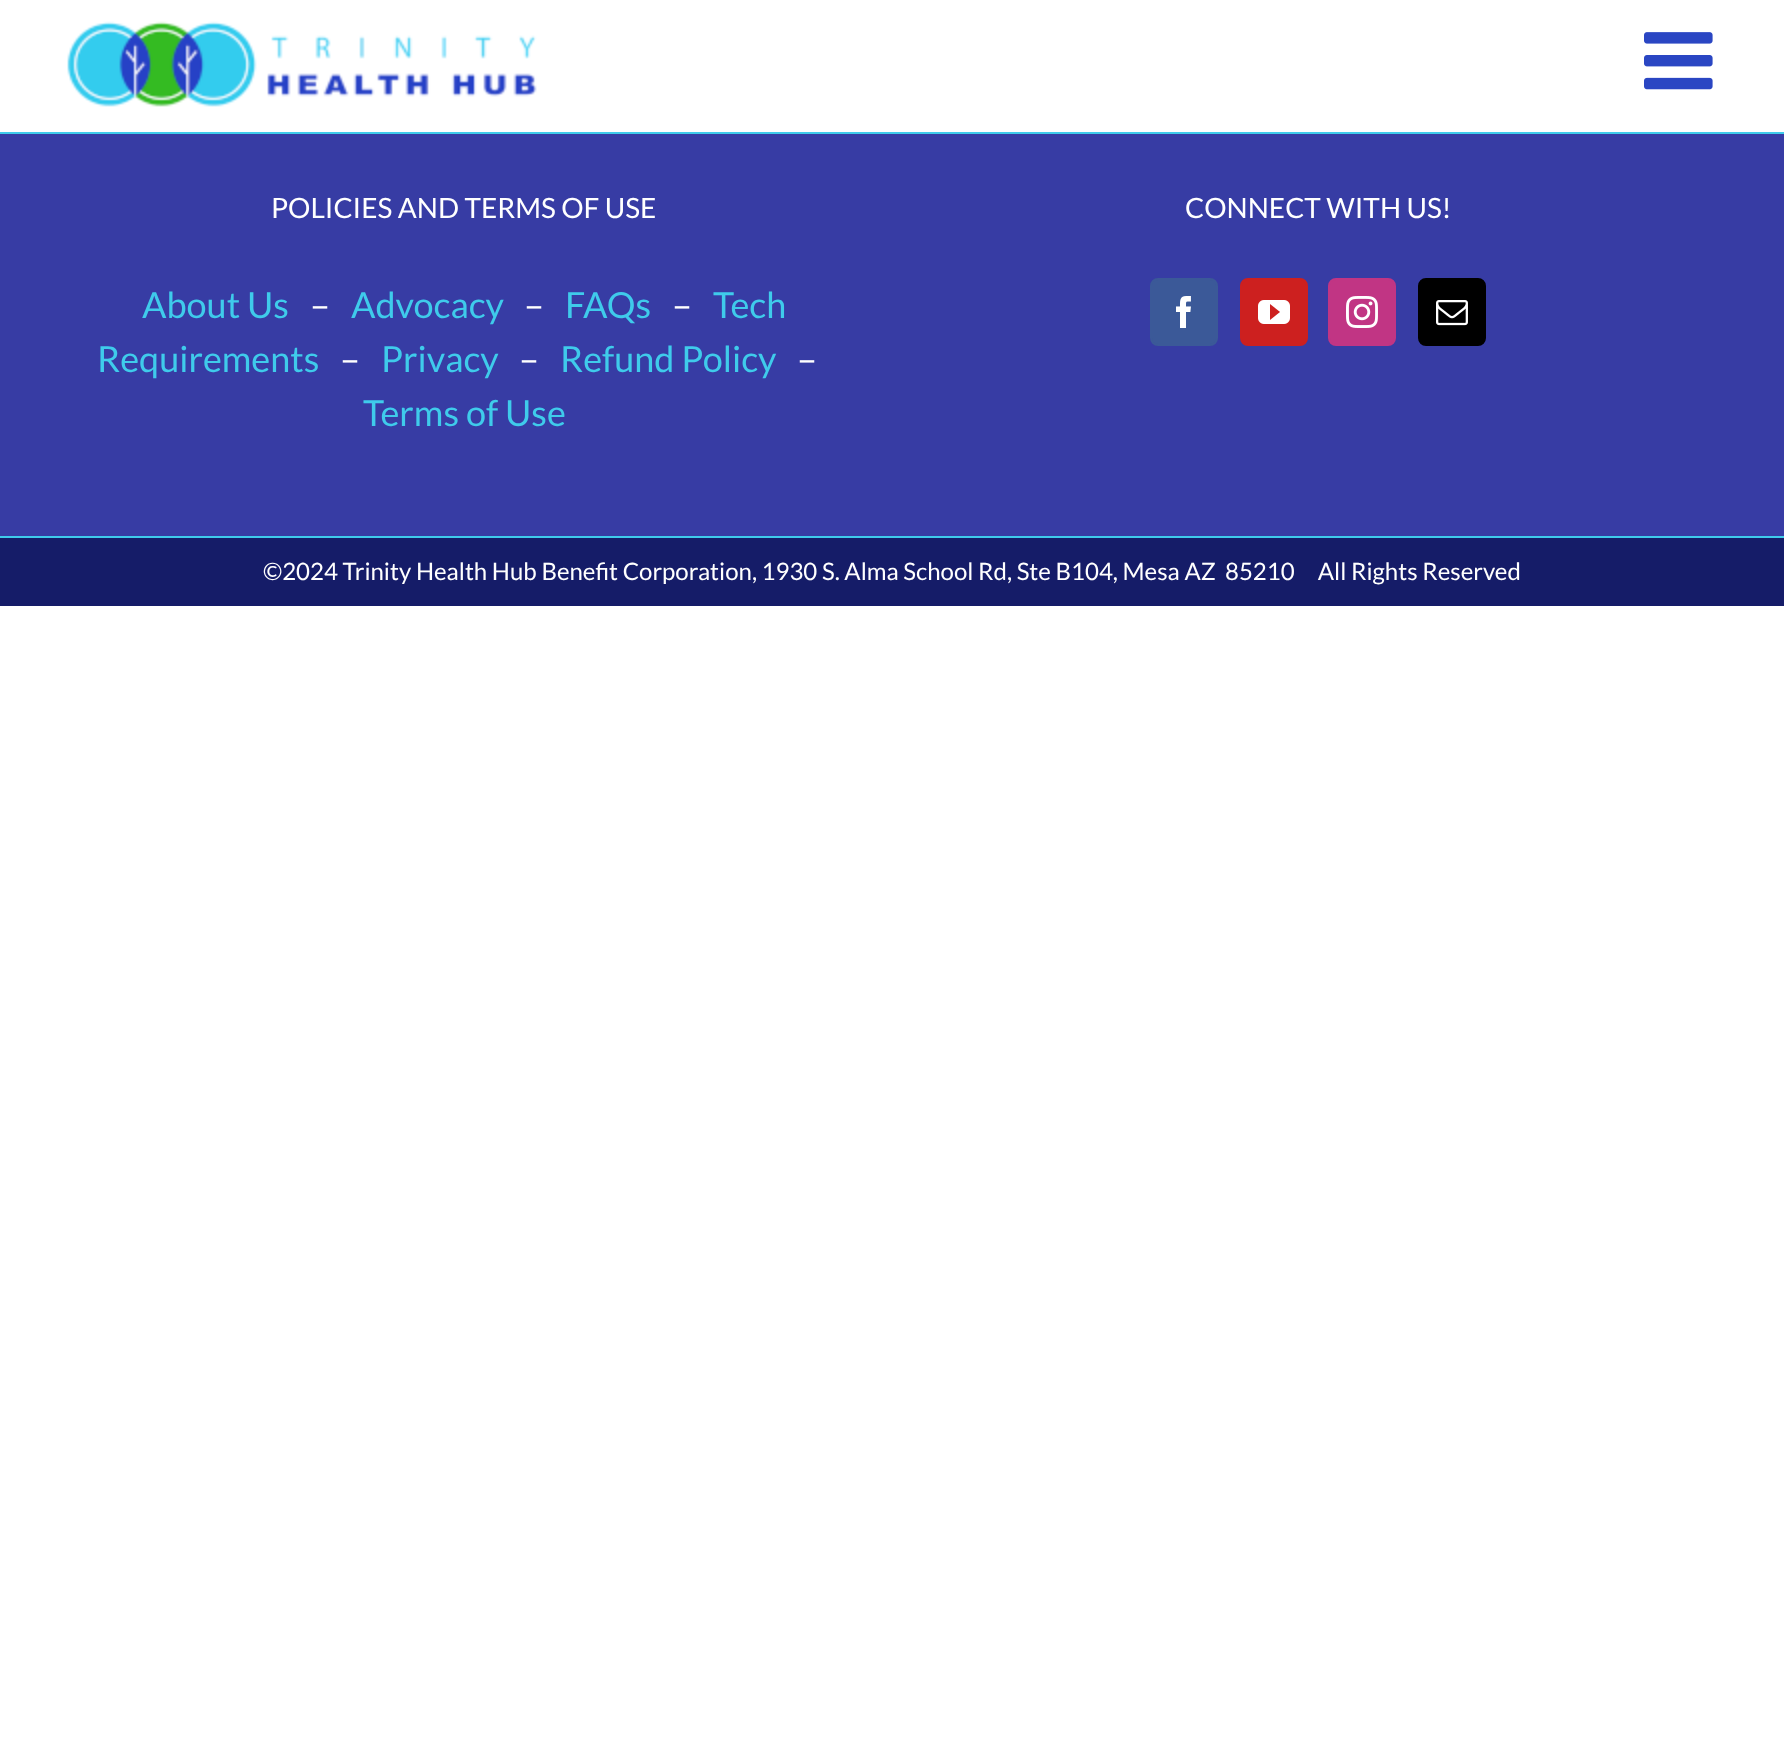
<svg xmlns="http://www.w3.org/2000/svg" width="1784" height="1762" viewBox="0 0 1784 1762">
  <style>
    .t1 { font: 28px Lato; fill: #fff; }
    .t2 { font: 36px Lato; fill: #3fcbeb; }
    .t3 { font: 36px Lato; fill: #fff; }
    .t4 { font: 24px Lato; fill: #fff; }
  </style>
  <rect width="100%" height="100%" fill="#fff"/>
  <image x="67" y="21" width="470" height="86" href="images/1.png"/>
  <image x="1644" y="32" width="69" height="58" href="images/2.png"/>
  <rect x="0" y="134" width="1784" height="402" fill="#373ca4"/>
  <rect x="0" y="132" width="1784" height="2" fill="#3fcbeb"/>
  <text x="271" y="218" class="t1">POLICIES AND TERMS OF USE</text>
  <text x="142" y="318" class="t2">About Us</text>
  <text x="310" y="318" class="t3">–</text>
  <text x="351" y="318" class="t2">Advocacy</text>
  <text x="524" y="318" class="t3">–</text>
  <text x="565" y="318" class="t2">FAQs</text>
  <text x="672" y="318" class="t3">–</text>
  <text x="713" y="318" class="t2">Tech</text>
  <text x="97" y="372" class="t2">Requirements</text>
  <text x="340" y="372" class="t3">–</text>
  <text x="381" y="372" class="t2">Privacy</text>
  <text x="519" y="372" class="t3">–</text>
  <text x="560" y="372" class="t2">Refund Policy</text>
  <text x="797" y="372" class="t3">–</text>
  <text x="363" y="426" class="t2">Terms of Use</text>
  <text x="1185" y="218" class="t1">CONNECT WITH US!</text>
  <rect x="1151" y="279" width="66" height="66" rx="7" fill="#3b5998" stroke="#3b5998" stroke-width="2"/>
  <image x="1176" y="296" width="15" height="32" href="images/3.png"/>
  <rect x="1241" y="279" width="66" height="66" rx="7" fill="#cd201f" stroke="#cd201f" stroke-width="2"/>
  <image x="1258" y="300" width="32" height="24" href="images/4.png"/>
  <rect x="1329" y="279" width="66" height="66" rx="7" fill="#c13584" stroke="#c13584" stroke-width="2"/>
  <image x="1346" y="296" width="32" height="32" href="images/5.png"/>
  <rect x="1419" y="279" width="66" height="66" rx="7" fill="#000" stroke="#000" stroke-width="2"/>
  <image x="1436" y="300" width="32" height="26" href="images/6.png"/>
  <rect x="0" y="538" width="1784" height="68" fill="#151c68"/>
  <rect x="0" y="536" width="1784" height="2" fill="#3fcbeb"/>
  <text x="263" y="580" class="t4" xml:space="preserve">©2024 Trinity Health Hub Benefit Corporation, 1930 S. Alma School Rd, Ste B104, Mesa AZ  85210     All Rights Reserved</text>
</svg>
